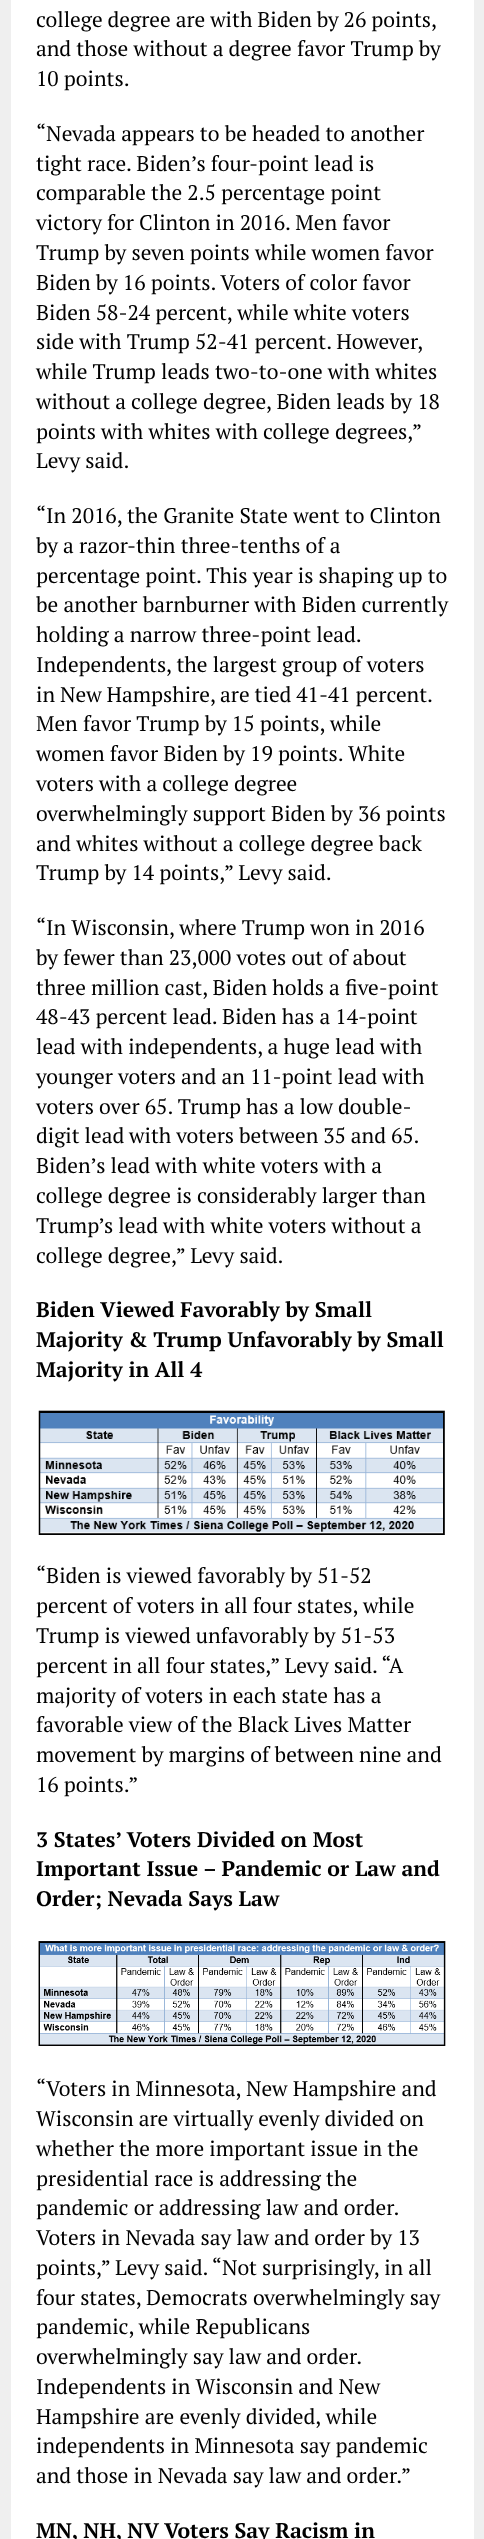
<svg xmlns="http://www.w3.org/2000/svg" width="484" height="2539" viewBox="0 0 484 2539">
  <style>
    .t1 { font: 21.25px PT Serif; fill: #000; }
    .t2 { font: bold 21.25px PT Serif; fill: #000; }
  </style>
  <rect width="100%" height="100%" fill="#efefef"/>
  <rect x="11" y="0" width="463" height="2539" fill="#fff"/>
  <text x="36" y="27" word-spacing="-0.25" class="t1">college degree are with Biden by 26 points,</text>
  <text x="36" y="56" class="t1">and those without a degree favor Trump by</text>
  <text x="36" y="86" class="t1">10 points.</text>
  <text x="36" y="141" class="t1">“Nevada appears to be headed to another</text>
  <text x="36" y="171" class="t1">tight race. Biden’s four-point lead is</text>
  <text x="36" y="200" class="t1">comparable the 2.5 percentage point</text>
  <text x="36" y="230" class="t1">victory for Clinton in 2016. Men favor</text>
  <text x="36" y="260" class="t1">Trump by seven points while women favor</text>
  <text x="36" y="290" class="t1">Biden by 16 points. Voters of color favor</text>
  <text x="36" y="320" class="t1">Biden 58-24 percent, while white voters</text>
  <text x="36" y="349" class="t1">side with Trump 52-41 percent. However,</text>
  <text x="36" y="379" class="t1">while Trump leads two-to-one with whites</text>
  <text x="36" y="409" class="t1">without a college degree, Biden leads by 18</text>
  <text x="36" y="439" class="t1">points with whites with college degrees,”</text>
  <text x="36" y="468" class="t1">Levy said.</text>
  <text x="36" y="523" class="t1">“In 2016, the Granite State went to Clinton</text>
  <text x="36" y="553" class="t1">by a razor-thin three-tenths of a</text>
  <text x="36" y="583" class="t1">percentage point. This year is shaping up to</text>
  <text x="36" y="612" class="t1">be another barnburner with Biden currently</text>
  <text x="36" y="642" class="t1">holding a narrow three-point lead.</text>
  <text x="36" y="672" class="t1">Independents, the largest group of voters</text>
  <text x="36" y="702" word-spacing="-0.25" class="t1">in New Hampshire, are tied 41-41 percent.</text>
  <text x="36" y="731" class="t1">Men favor Trump by 15 points, while</text>
  <text x="36" y="761" class="t1">women favor Biden by 19 points. White</text>
  <text x="36" y="791" class="t1">voters with a college degree</text>
  <text x="36" y="821" class="t1">overwhelmingly support Biden by 36 points</text>
  <text x="36" y="851" class="t1">and whites without a college degree back</text>
  <text x="36" y="880" class="t1">Trump by 14 points,” Levy said.</text>
  <text x="36" y="935" class="t1">“In Wisconsin, where Trump won in 2016</text>
  <text x="36" y="965" class="t1">by fewer than 23,000 votes out of about</text>
  <text x="36" y="995" class="t1">three million cast, Biden holds a five-point</text>
  <text x="36" y="1024" class="t1">48-43 percent lead. Biden has a 14-point</text>
  <text x="36" y="1054" class="t1">lead with independents, a huge lead with</text>
  <text x="36" y="1084" class="t1">younger voters and an 11-point lead with</text>
  <text x="36" y="1114" class="t1">voters over 65. Trump has a low double-</text>
  <text x="36" y="1143" word-spacing="-0.25" class="t1">digit lead with voters between 35 and 65.</text>
  <text x="36" y="1173" class="t1">Biden’s lead with white voters with a</text>
  <text x="36" y="1203" class="t1">college degree is considerably larger than</text>
  <text x="36" y="1233" class="t1">Trump’s lead with white voters without a</text>
  <text x="36" y="1263" class="t1">college degree,” Levy said.</text>
  <text x="36" y="1317" class="t2">Biden Viewed Favorably by Small</text>
  <text x="36" y="1347" class="t2">Majority &amp; Trump Unfavorably by Small</text>
  <text x="36" y="1377" class="t2">Majority in All 4</text>
  <image x="38" y="1410" width="407" height="125" href="images/1.png"/>
  <text x="36" y="1583" class="t1">“Biden is viewed favorably by 51-52</text>
  <text x="36" y="1613" class="t1">percent of voters in all four states, while</text>
  <text x="36" y="1643" class="t1">Trump is viewed unfavorably by 51-53</text>
  <text x="36" y="1673" class="t1">percent in all four states,” Levy said. “A</text>
  <text x="36" y="1703" class="t1">majority of voters in each state has a</text>
  <text x="36" y="1732" class="t1">favorable view of the Black Lives Matter</text>
  <text x="36" y="1762" class="t1">movement by margins of between nine and</text>
  <text x="36" y="1792" class="t1">16 points.”</text>
  <text x="36" y="1847" class="t2">3 States’ Voters Divided on Most</text>
  <text x="36" y="1876" class="t2">Important Issue – Pandemic or Law and</text>
  <text x="36" y="1906" class="t2">Order; Nevada Says Law</text>
  <image x="38" y="1941" width="408" height="105" href="images/2.png"/>
  <text x="36" y="2096" class="t1">“Voters in Minnesota, New Hampshire and</text>
  <text x="36" y="2126" class="t1">Wisconsin are virtually evenly divided on</text>
  <text x="36" y="2156" class="t1">whether the more important issue in the</text>
  <text x="36" y="2186" class="t1">presidential race is addressing the</text>
  <text x="36" y="2215" class="t1">pandemic or addressing law and order.</text>
  <text x="36" y="2245" class="t1">Voters in Nevada say law and order by 13</text>
  <text x="36" y="2275" class="t1">points,” Levy said. “Not surprisingly, in all</text>
  <text x="36" y="2305" class="t1">four states, Democrats overwhelmingly say</text>
  <text x="36" y="2334" class="t1">pandemic, while Republicans</text>
  <text x="36" y="2364" class="t1">overwhelmingly say law and order.</text>
  <text x="36" y="2394" class="t1">Independents in Wisconsin and New</text>
  <text x="36" y="2424" class="t1">Hampshire are evenly divided, while</text>
  <text x="36" y="2453" class="t1">independents in Minnesota say pandemic</text>
  <text x="36" y="2483" class="t1">and those in Nevada say law and order.”</text>
  <text x="36" y="2538" class="t2">MN, NH, NV Voters Say Racism in</text>
</svg>
